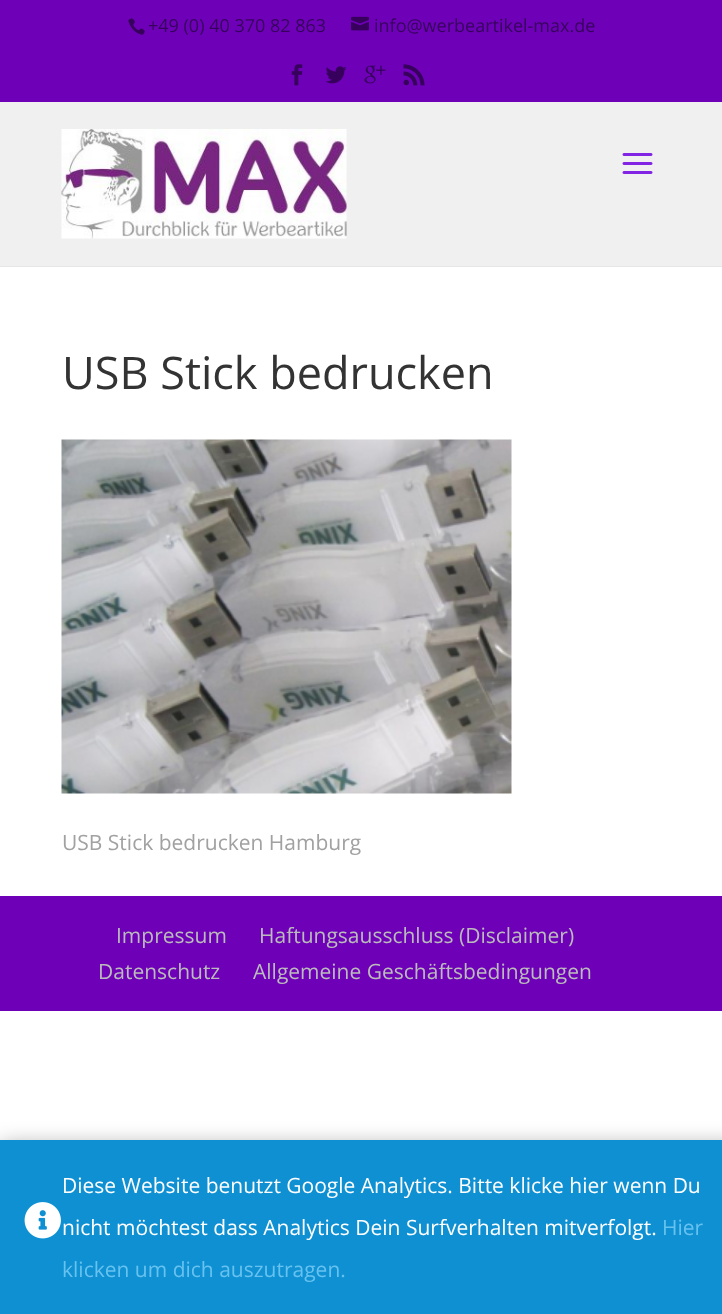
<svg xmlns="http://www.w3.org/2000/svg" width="722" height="1314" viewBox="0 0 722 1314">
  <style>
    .t1 { font: 18px Open Sans; fill: #37005c; }
    .t2 { font: 45px Open Sans; fill: #333; }
    .t3 { font: 21px Open Sans; fill: #a1a1a1; }
    .t4 { font: 21px Open Sans; fill: #bbb; }
    .t5 { font: 21px Open Sans; fill: #fff; }
    .t6 { font: 21px Open Sans; fill: #67c2f0; }
  </style>
  <rect width="100%" height="100%" fill="#fff"/>
  <rect x="0" y="0" width="722" height="102" fill="#6e00b8"/>
  <image x="128" y="18" width="17" height="17" href="images/1.png"/>
  <text x="148" y="32" class="t1">+49 (0) 40 370 82 863</text>
  <image x="351" y="16" width="18" height="15" href="images/2.png"/>
  <text x="374" y="32" class="t1">info@werbeartikel-max.de</text>
  <image x="291" y="64" width="12" height="22" href="images/3.png"/>
  <image x="325" y="66" width="22" height="18" href="images/4.png"/>
  <image x="364" y="65" width="22" height="19" href="images/5.png"/>
  <image x="403" y="64" width="22" height="22" href="images/6.png"/>
  <rect x="0" y="266" width="722" height="1" fill="#e6e6e6"/>
  <rect x="0" y="102" width="722" height="164" fill="#f0f0f0"/>
  <image x="61" y="129" width="286" height="110" href="images/7.png"/>
  <image x="622" y="153" width="31" height="21" href="images/8.png"/>
  <text x="62" y="389" class="t2">USB Stick bedrucken</text>
  <image x="61" y="439" width="451" height="355" href="images/9.png"/>
  <text x="62" y="850" class="t3">USB Stick bedrucken Hamburg</text>
  <rect x="0" y="896" width="722" height="115" fill="#6e00b8"/>
  <text x="116" y="943" class="t4">Impressum</text>
  <text x="259" y="943" class="t4">Haftungsausschluss (Disclaimer)</text>
  <text x="98" y="979" class="t4">Datenschutz</text>
  <text x="253" y="979" class="t4">Allgemeine Geschäftsbedingungen</text>
  <rect x="0" y="1146" width="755" height="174" fill="#00000066" filter="blur(11px)"/>
  <rect x="0" y="1140" width="722" height="174" fill="#0e90d2"/>
  <image x="24" y="1202" width="37" height="37" href="images/10.png"/>
  <text x="62" y="1193" class="t5">Diese Website benutzt Google Analytics. Bitte klicke hier wenn Du</text>
  <text x="62" y="1235" class="t5">nicht möchtest dass Analytics Dein Surfverhalten mitverfolgt.</text>
  <text x="662" y="1235" class="t6">Hier</text>
  <text x="62" y="1277" class="t6">klicken um dich auszutragen.</text>
</svg>
